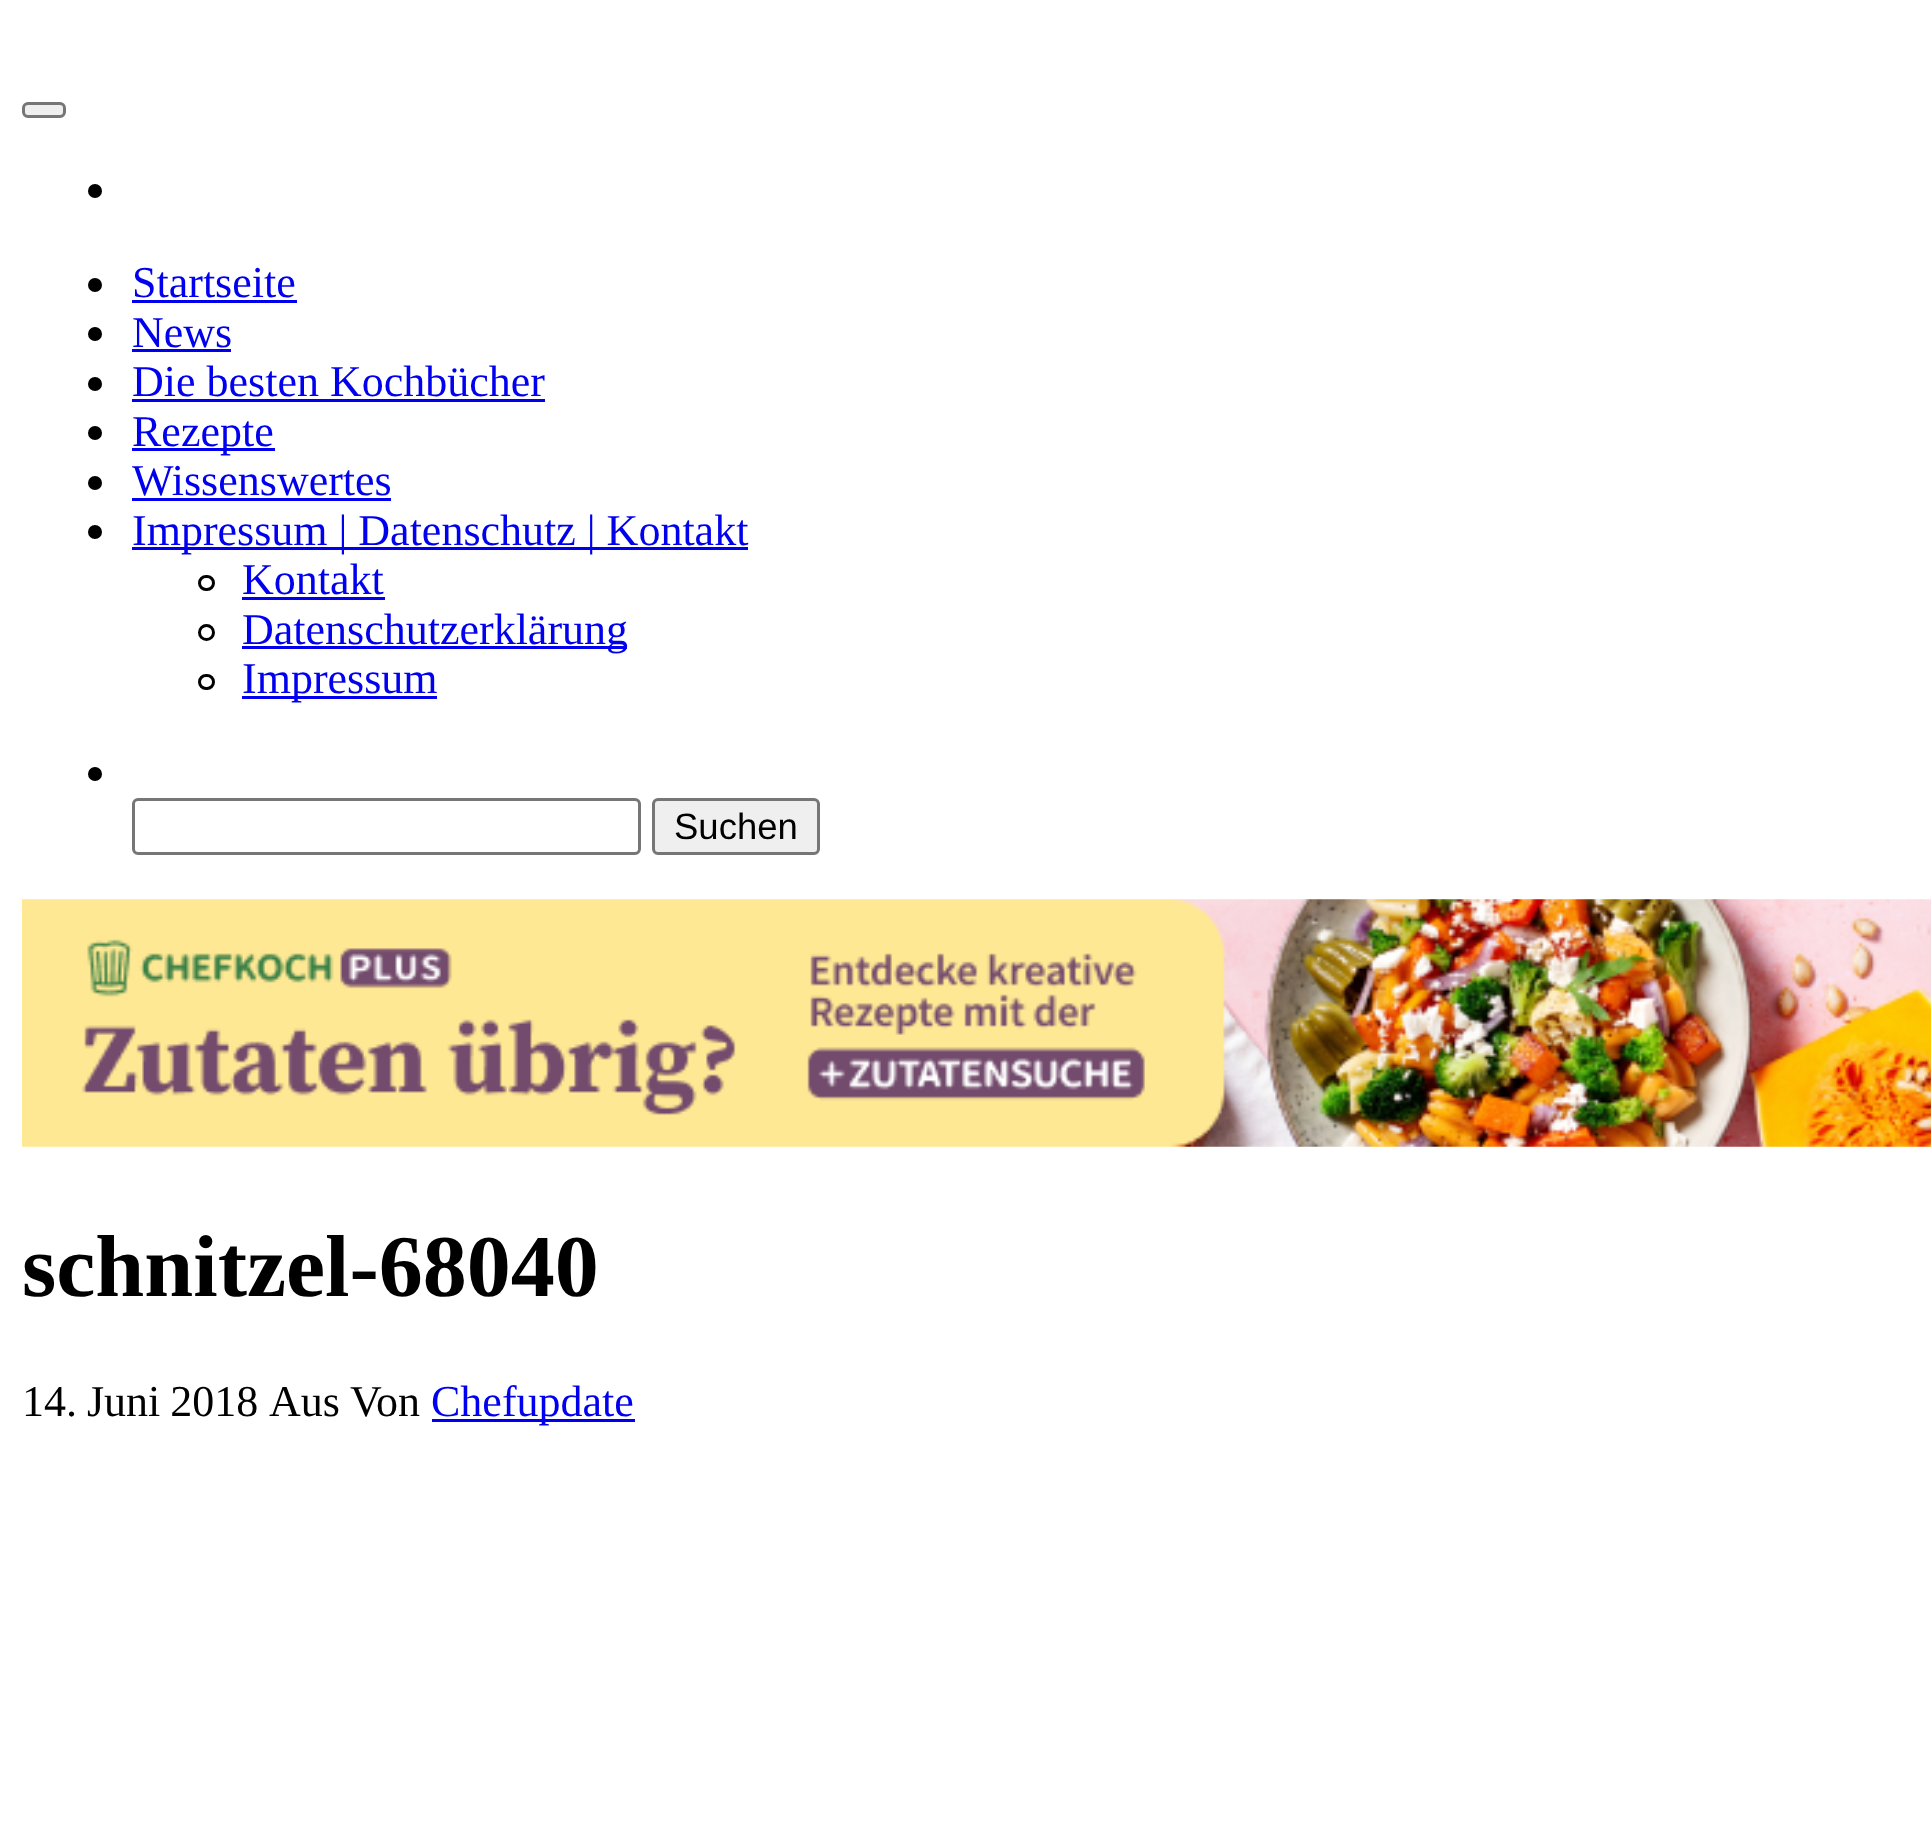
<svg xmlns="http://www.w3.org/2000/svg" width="1931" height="1846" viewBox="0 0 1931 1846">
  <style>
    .t1 { font: 44px Liberation Serif; fill: #00e; }
    .t2 { font: 36.5px Liberation Sans; fill: #000; }
    .t3 { font: bold 88px Liberation Serif; fill: #000; }
    .t4 { font: 44px Liberation Serif; fill: #000; }
  </style>
  <rect width="100%" height="100%" fill="#fff"/>
  <rect x="23.5" y="103.5" width="41" height="13" rx="4.5" fill="#efefef" stroke="#767676" stroke-width="3"/>
  <circle cx="95" cy="191" r="7" fill="#000"/>
  <circle cx="95" cy="285" r="7" fill="#000"/>
  <text x="132" y="297" class="t1">Startseite</text>
  <rect x="132" y="300" width="165" height="3" fill="#00e"/>
  <circle cx="95" cy="334" r="7" fill="#000"/>
  <text x="132" y="347" class="t1">News</text>
  <rect x="132" y="349" width="99" height="3" fill="#00e"/>
  <circle cx="95" cy="384" r="7" fill="#000"/>
  <text x="132" y="396" class="t1">Die besten Kochbücher</text>
  <rect x="132" y="399" width="413" height="3" fill="#00e"/>
  <circle cx="95" cy="433" r="7" fill="#000"/>
  <rect x="132" y="448" width="143" height="3" fill="#00e"/>
  <text x="132" y="446" class="t1">Rezepte</text>
  <circle cx="95" cy="483" r="7" fill="#000"/>
  <text x="132" y="495" class="t1">Wissenswertes</text>
  <rect x="132" y="498" width="259" height="3" fill="#00e"/>
  <circle cx="95" cy="532" r="7" fill="#000"/>
  <rect x="132" y="547" width="616" height="3" fill="#00e"/>
  <text x="132" y="545" class="t1">Impressum | Datenschutz | Kontakt</text>
  <rect x="199.5" y="576.5" width="14" height="13" rx="6.5" fill="none" stroke="#000" stroke-width="3"/>
  <text x="242" y="594" class="t1">Kontakt</text>
  <rect x="242" y="597" width="143" height="3" fill="#00e"/>
  <circle cx="206.5" cy="632.5" r="7" fill="none" stroke="#000" stroke-width="3"/>
  <rect x="242" y="646" width="385" height="3" fill="#00e"/>
  <text x="242" y="644" class="t1">Datenschutzerklärung</text>
  <rect x="199.5" y="675.5" width="14" height="13" rx="6.5" fill="none" stroke="#000" stroke-width="3"/>
  <rect x="242" y="696" width="195" height="3" fill="#00e"/>
  <text x="242" y="693" class="t1">Impressum</text>
  <circle cx="95" cy="774" r="7" fill="#000"/>
  <rect x="133.5" y="799.5" width="506" height="54" rx="4.5" fill="none" stroke="#767676" stroke-width="3"/>
  <rect x="653.5" y="799.5" width="165" height="54" rx="4.5" fill="#efefef" stroke="#767676" stroke-width="3"/>
  <text x="674" y="839" class="t2">Suchen</text>
  <image x="22" y="899" width="1909" height="248" href="images/1.png"/>
  <text x="22" y="1296" class="t3">schnitzel-68040</text>
  <text x="22" y="1416" word-spacing="-1" class="t4">14. Juni 2018</text>
  <text x="269" y="1416" class="t4">Aus</text>
  <text x="350" y="1416" class="t4">Von</text>
  <rect x="432" y="1419" width="203" height="3" fill="#00e"/>
  <text x="431" y="1416" class="t1">Chefupdate</text>
</svg>
